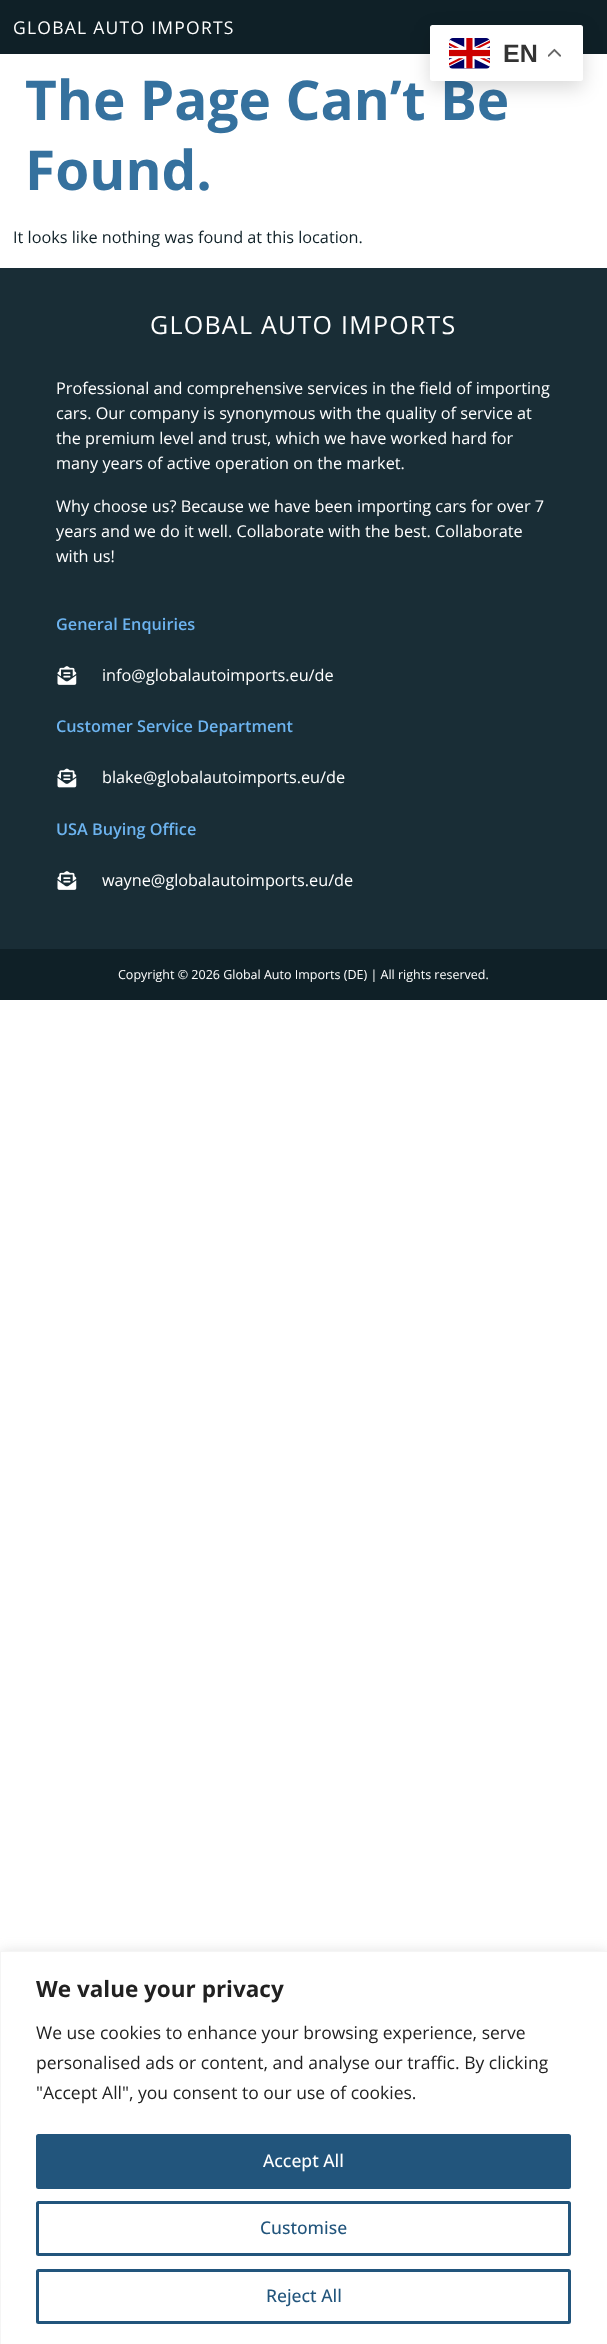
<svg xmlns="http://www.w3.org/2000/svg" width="607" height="2344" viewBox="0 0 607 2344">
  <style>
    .t1 { font: 17.5px Open Sans; letter-spacing: 1.25px; fill: #fff; }
    .t2 { font: bold 55px Open Sans; fill: #35719e; }
    .t3 { font: 16.25px Open Sans; fill: #0f2027; }
    .t4 { font: 25px Open Sans; letter-spacing: 1.25px; fill: #fff; }
    .t5 { font: 16.25px Open Sans; fill: #fff; }
    .t6 { font: 600 16.25px Open Sans; fill: #6db4f0; }
    .t7 { font: 12.5px Open Sans; fill: #fff; }
    .t8 { font: bold 25px Liberation Sans; fill: #333; }
    .t9 { font: bold 22.5px Open Sans; fill: #212121; }
    .t10 { font: 17.5px Open Sans; fill: #212121; }
    .t11 { font: 500 17.5px Open Sans; fill: #fff; }
    .t12 { font: 500 17.5px Open Sans; fill: #22557c; }
  </style>
  <rect width="100%" height="100%" fill="#fff"/>
  <rect x="0" y="0" width="607" height="54" fill="#0f2027"/>
  <text x="13" y="34" class="t1">GLOBAL AUTO IMPORTS</text>
  <text x="25" y="120" class="t2">The Page Can’t Be</text>
  <text x="25" y="190" class="t2">Found.</text>
  <text x="13" y="243" class="t3">It looks like nothing was found at this location.</text>
  <rect x="0" y="268" width="607" height="681" fill="#192d36"/>
  <text x="150" y="334" class="t4">GLOBAL AUTO IMPORTS</text>
  <text x="56" y="394" class="t5">Professional and comprehensive services in the field of importing</text>
  <text x="56" y="419" class="t5">cars. Our company is synonymous with the quality of service at</text>
  <text x="56" y="444" class="t5">the premium level and trust, which we have worked hard for</text>
  <text x="56" y="469" class="t5">many years of active operation on the market.</text>
  <text x="56" y="512" class="t5">Why choose us? Because we have been importing cars for over 7</text>
  <text x="56" y="537" class="t5">years and we do it well. Collaborate with the best. Collaborate</text>
  <text x="56" y="562" class="t5">with us!</text>
  <text x="56" y="630" class="t6">General Enquiries</text>
  <image x="57" y="666" width="20" height="19" href="images/1.png"/>
  <text x="102" y="681" class="t5">info@globalautoimports.eu/de</text>
  <text x="56" y="732" class="t6">Customer Service Department</text>
  <image x="57" y="768" width="20" height="20" href="images/2.png"/>
  <text x="102" y="783" class="t5">blake@globalautoimports.eu/de</text>
  <text x="56" y="835" class="t6">USA Buying Office</text>
  <image x="57" y="871" width="20" height="19" href="images/1.png"/>
  <text x="102" y="886" class="t5">wayne@globalautoimports.eu/de</text>
  <rect x="0" y="949" width="607" height="51" fill="#0f2027"/>
  <text x="118" y="979" class="t7">Copyright © 2026 Global Auto Imports (DE) | All rights reserved.</text>
  <rect x="430" y="31" width="153" height="57" rx="2.5" fill="#00000026" filter="blur(9.5px)"/>
  <rect x="430" y="25" width="153" height="56" rx="2.5" fill="#fff"/>
  <image x="449" y="38" width="41" height="31" href="images/3.png"/>
  <text x="503" y="62" class="t8">EN</text>
  <image x="548" y="48" width="13" height="9" href="images/4.png"/>
  <rect x="0" y="1950" width="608" height="394" fill="#acabab4d" filter="blur(6px)"/>
  <rect x="0.5" y="1951.5" width="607" height="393" fill="#fff" stroke="#f5f5f5"/>
  <text x="36" y="1997" class="t9">We value your privacy</text>
  <text x="36" y="2039" class="t10">We use cookies to enhance your browsing experience, serve</text>
  <text x="36" y="2069" class="t10">personalised ads or content, and analyse our traffic. By clicking</text>
  <text x="36" y="2099" class="t10">"Accept All", you consent to our use of cookies.</text>
  <rect x="37.5" y="2135.5" width="532" height="52" rx="1" fill="#22557c" stroke="#22557c" stroke-width="3"/>
  <text x="263" y="2167" class="t11">Accept All</text>
  <rect x="37.5" y="2202.5" width="532" height="52" rx="1" fill="none" stroke="#22557c" stroke-width="3"/>
  <text x="260" y="2234" class="t12">Customise</text>
  <rect x="37.5" y="2270.5" width="532" height="52" rx="1" fill="none" stroke="#22557c" stroke-width="3"/>
  <text x="266" y="2302" class="t12">Reject All</text>
</svg>
